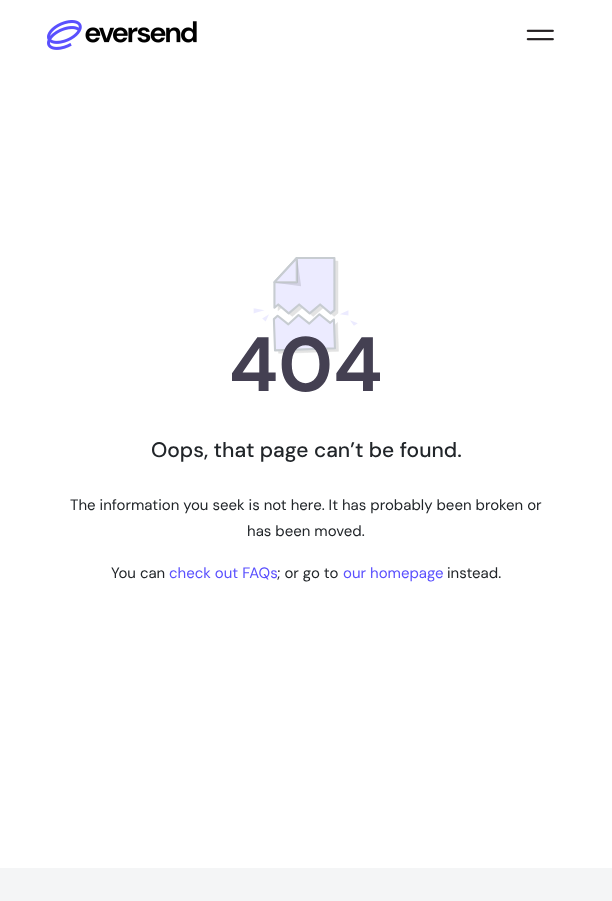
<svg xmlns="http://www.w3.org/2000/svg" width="612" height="901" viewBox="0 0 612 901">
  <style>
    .t1 { font: 500 21px DM Sans; fill: #212529; }
    .t2 { font: 15px DM Sans; fill: #212529; }
    .t3 { font: 15px DM Sans; fill: #5a50fe; }
  </style>
  <rect width="100%" height="100%" fill="#fff"/>
  <image x="47" y="20" width="150" height="30" href="images/1.png"/>
  <image x="526" y="29" width="28" height="12" href="images/2.png"/>
  <image x="232" y="257" width="148" height="135" href="images/3.png"/>
  <text x="151" y="457" class="t1">Oops, that page can’t be found.</text>
  <text x="70" y="510" class="t2">The information you seek is not here. It has probably been broken or</text>
  <text x="247" y="536" class="t2">has been moved.</text>
  <text x="111" y="578" class="t2">You can</text>
  <text x="169" y="578" class="t3">check out FAQs</text>
  <text x="277" y="578" class="t2">; or go to</text>
  <text x="343" y="578" class="t3">our homepage</text>
  <text x="447" y="578" class="t2">instead.</text>
  <rect x="0" y="868" width="612" height="33" fill="#f4f5f6"/>
</svg>
